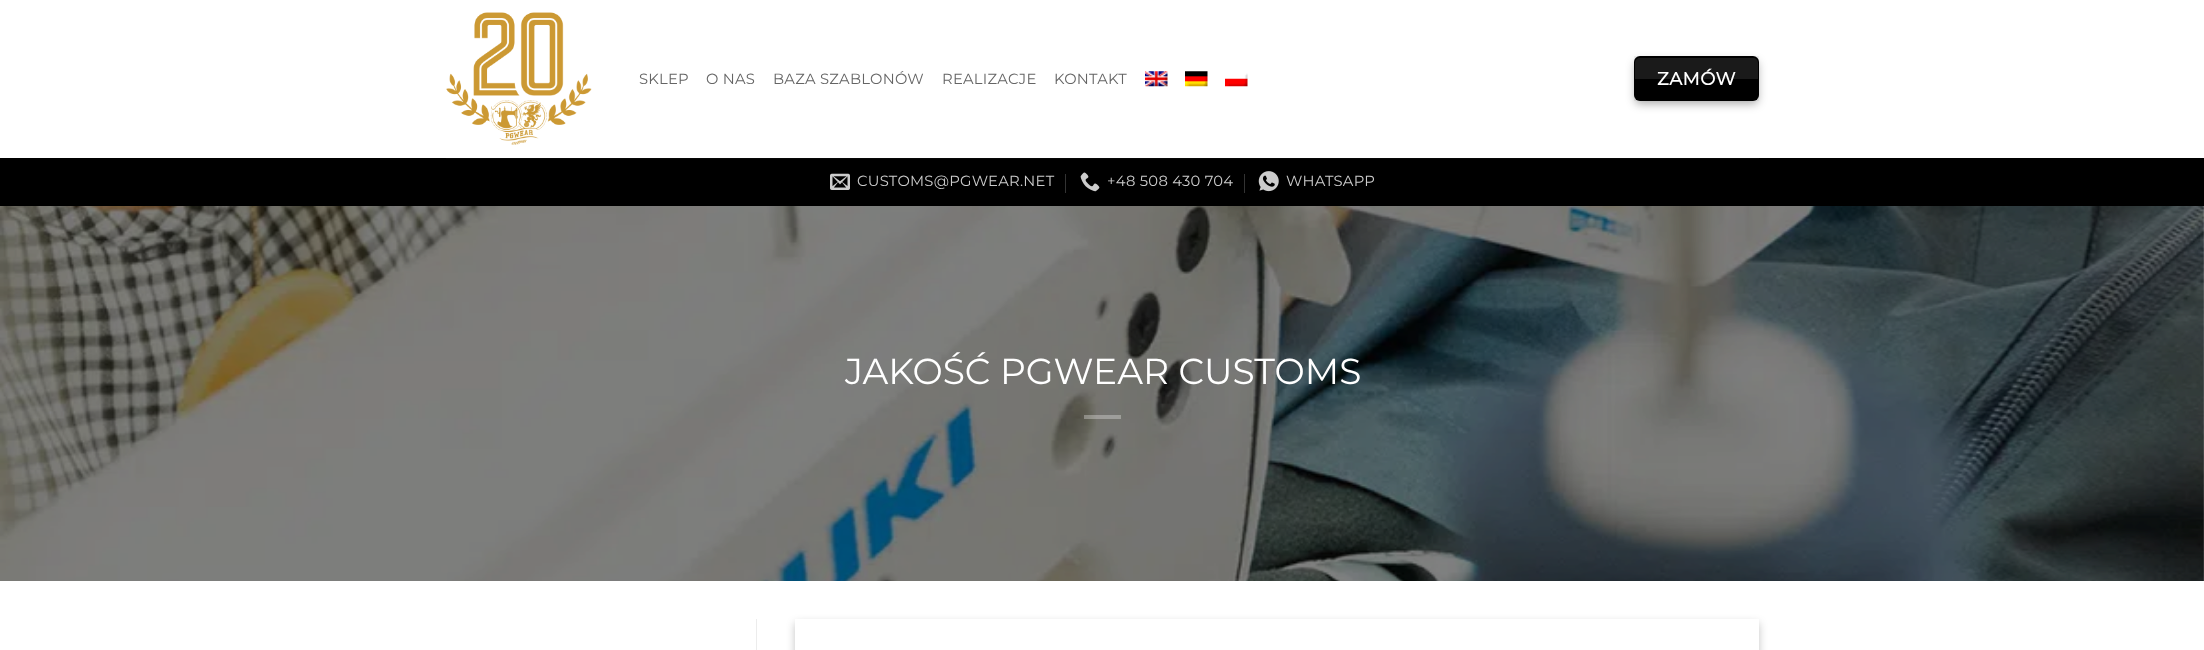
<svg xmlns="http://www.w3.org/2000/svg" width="2204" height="650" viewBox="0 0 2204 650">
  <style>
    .t1 { font: 100 14.75px Montserrat; letter-spacing: 0.25px; fill: #656565; }
    .t2 { font: bold 18px Montserrat; letter-spacing: 0.5px; fill: #fff; }
    .t3 { font: 100 14.75px Montserrat; letter-spacing: 0.25px; fill: #ccc; }
    .t4 { font: 100 36px Montserrat; fill: #fff; }
  </style>
  <rect width="100%" height="100%" fill="#fff"/>
  <image x="446" y="12" width="146" height="133" href="images/1.png"/>
  <text x="639" y="84" class="t1">SKLEP</text>
  <text x="706" y="84" class="t1">O NAS</text>
  <text x="773" y="84" class="t1">BAZA SZABLONÓW</text>
  <text x="942" y="84" class="t1">REALIZACJE</text>
  <text x="1054" y="84" class="t1">KONTAKT</text>
  <image x="1145" y="71" width="23" height="16" href="images/2.png"/>
  <image x="1185" y="71" width="23" height="16" href="images/3.png"/>
  <image x="1225" y="73" width="23" height="14" href="images/4.png"/>
  <rect x="1634" y="60" width="125" height="45" rx="6" fill="#0000003b" filter="blur(4px)"/>
  <rect x="1639" y="65" width="115" height="35" rx="1" fill="#00000029" filter="blur(4px)"/>
  <rect x="1634" y="56" width="125" height="45" rx="6" fill="#000"/>
  <rect x="1634.5" y="56.5" width="124" height="44" fill="none" stroke="#0000000d"/>
  <path d="M1640 58H1753C1756 58 1758 60 1758 63V79H1635V63C1635 60 1637 58 1640 58Z" fill="#ffffff1a"/>
  <text x="1657" y="85" class="t2">ZAMÓW</text>
  <rect x="0" y="158" width="2204" height="48" fill="#000"/>
  <rect x="446" y="158" width="1313" height="1" fill="#070707"/>
  <image x="830" y="173" width="20" height="17" href="images/5.png"/>
  <text x="857" y="186" class="t3">CUSTOMS@PGWEAR.NET</text>
  <rect x="1065" y="174" width="1" height="19" fill="#333"/>
  <image x="1080" y="172" width="20" height="20" href="images/6.png"/>
  <text x="1107" y="186" class="t3">+48 508 430 704</text>
  <rect x="1244" y="174" width="1" height="19" fill="#333"/>
  <image x="1258" y="171" width="21" height="21" href="images/7.png"/>
  <text x="1286" y="186" class="t3">WHATSAPP</text>
  <image x="0" y="206" width="2204" height="375" href="images/8.png"/>
  <text x="845" y="384" class="t4">JAKOŚĆ PGWEAR CUSTOMS</text>
  <rect x="1084" y="415" width="37" height="4" fill="#ffffff4d"/>
  <rect x="756" y="619" width="1" height="31" fill="#ececec"/>
  <rect x="795" y="623" width="964" height="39" fill="#0000003b" filter="blur(4px)"/>
  <rect x="795" y="619" width="964" height="31" fill="#fff"/>
</svg>
